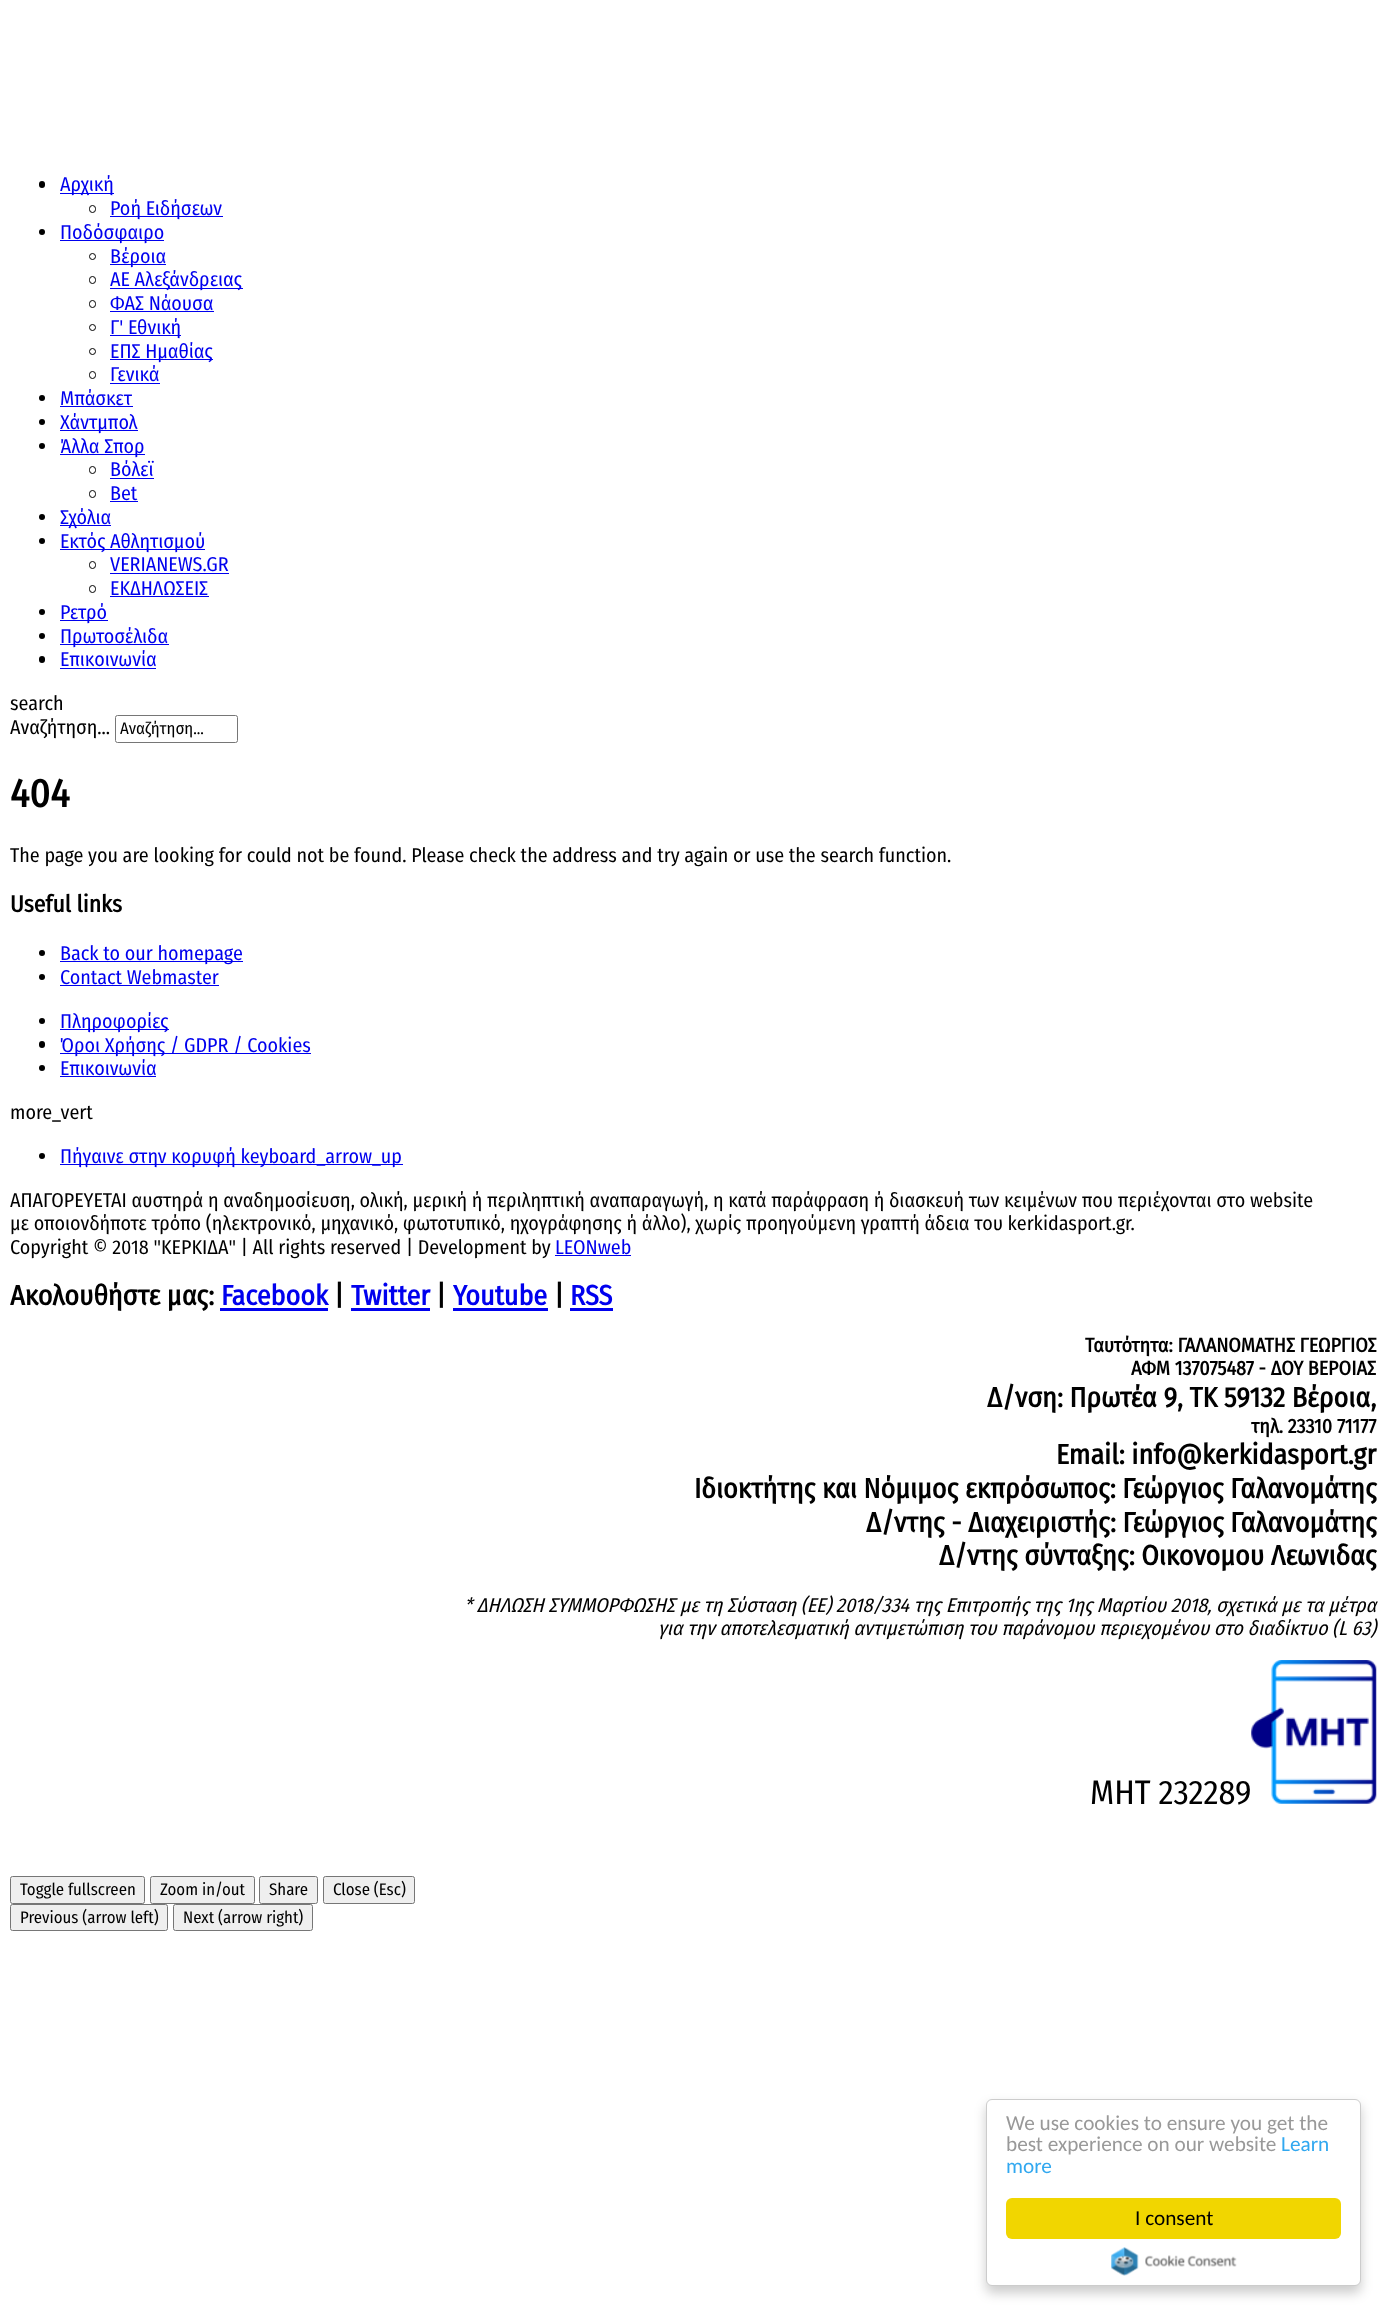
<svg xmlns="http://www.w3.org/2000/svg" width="1386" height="2311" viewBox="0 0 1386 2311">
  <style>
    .t1 { font: 20px Fira Sans Condensed; fill: #00e; }
    .t2 { font: 20px Fira Sans Condensed; fill: #000; }
    .t3 { font: 16.75px Fira Sans Condensed; fill: #000; }
    .t4 { font: bold 40px Fira Sans Condensed; fill: #000; }
    .t5 { font: bold 23.5px Fira Sans Condensed; fill: #000; }
    .t6 { font: bold 28px Fira Sans Condensed; fill: #000; }
    .t7 { font: bold 28px Fira Sans Condensed; fill: #00e; }
    .t8 { font: bold 20px Fira Sans Condensed; fill: #000; }
    .t9 { font: italic 20px Fira Sans Condensed; fill: #000; }
    .t10 { font: 34px Fira Sans Condensed; fill: #000; }
    .t11 { font: 21.25px Carlito; fill: #999; }
    .t12 { font: 21.25px Carlito; fill: #31a8f0; }
    .t13 { font: 21.25px Carlito; fill: #000; }
  </style>
  <rect width="100%" height="100%" fill="#fff"/>
  <rect x="39" y="181" width="6" height="7" rx="3" fill="#000"/>
  <rect x="60" y="193" width="54" height="1" fill="#00e"/>
  <text x="60" y="191" class="t1">Αρχική</text>
  <rect x="89.5" y="205.5" width="6" height="7" rx="3" fill="none" stroke="#000"/>
  <rect x="110" y="216" width="113" height="1" fill="#00e"/>
  <text x="110" y="215" class="t1">Ροή Ειδήσεων</text>
  <circle cx="42" cy="232" r="3" fill="#000"/>
  <rect x="60" y="240" width="104" height="1" fill="#00e"/>
  <text x="60" y="239" class="t1">Ποδόσφαιρο</text>
  <circle cx="92.5" cy="256.5" r="3" fill="none" stroke="#000"/>
  <rect x="110" y="264" width="56" height="1" fill="#00e"/>
  <text x="110" y="263" class="t1">Βέροια</text>
  <rect x="89.5" y="276.5" width="6" height="7" rx="3" fill="none" stroke="#000"/>
  <rect x="110" y="288" width="133" height="1" fill="#00e"/>
  <text x="110" y="286" class="t1">ΑΕ Αλεξάνδρειας</text>
  <rect x="89.5" y="300.5" width="6" height="7" rx="3" fill="none" stroke="#000"/>
  <text x="110" y="310" class="t1">ΦΑΣ Νάουσα</text>
  <rect x="110" y="311" width="104" height="1" fill="#00e"/>
  <circle cx="92.5" cy="327.5" r="3" fill="none" stroke="#000"/>
  <rect x="110" y="335" width="71" height="1" fill="#00e"/>
  <text x="110" y="334" class="t1">Γ' Εθνική</text>
  <circle cx="92.5" cy="351.5" r="3" fill="none" stroke="#000"/>
  <rect x="110" y="359" width="103" height="1" fill="#00e"/>
  <text x="110" y="358" class="t1">ΕΠΣ Ημαθίας</text>
  <rect x="89.5" y="371.5" width="6" height="7" rx="3" fill="none" stroke="#000"/>
  <text x="110" y="381" class="t1">Γενικά</text>
  <rect x="110" y="383" width="50" height="1" fill="#00e"/>
  <circle cx="42" cy="398" r="3" fill="#000"/>
  <text x="60" y="405" class="t1">Μπάσκετ</text>
  <rect x="60" y="406" width="73" height="1" fill="#00e"/>
  <circle cx="42" cy="422" r="3" fill="#000"/>
  <rect x="60" y="430" width="78" height="1" fill="#00e"/>
  <text x="60" y="429" class="t1">Χάντμπολ</text>
  <circle cx="42" cy="446" r="3" fill="#000"/>
  <rect x="60" y="454" width="85" height="1" fill="#00e"/>
  <text x="60" y="453" class="t1">Άλλα Σπορ</text>
  <rect x="89.5" y="466.5" width="6" height="7" rx="3" fill="none" stroke="#000"/>
  <text x="110" y="476" class="t1">Βόλεϊ</text>
  <rect x="110" y="478" width="44" height="1" fill="#00e"/>
  <rect x="89.5" y="490.5" width="6" height="7" rx="3" fill="none" stroke="#000"/>
  <text x="110" y="500" class="t1">Bet</text>
  <rect x="110" y="501" width="28" height="1" fill="#00e"/>
  <circle cx="42" cy="517" r="3" fill="#000"/>
  <rect x="60" y="525" width="51" height="1" fill="#00e"/>
  <text x="60" y="524" class="t1">Σχόλια</text>
  <circle cx="42" cy="541" r="3" fill="#000"/>
  <rect x="60" y="549" width="145" height="1" fill="#00e"/>
  <text x="60" y="548" class="t1">Εκτός Αθλητισμού</text>
  <rect x="89.5" y="561.5" width="6" height="7" rx="3" fill="none" stroke="#000"/>
  <text x="110" y="571" class="t1">VERIANEWS.GR</text>
  <rect x="110" y="573" width="119" height="1" fill="#00e"/>
  <rect x="89.5" y="585.5" width="6" height="7" rx="3" fill="none" stroke="#000"/>
  <text x="110" y="595" class="t1">ΕΚΔΗΛΩΣΕΙΣ</text>
  <rect x="110" y="596" width="99" height="1" fill="#00e"/>
  <circle cx="42" cy="612" r="3" fill="#000"/>
  <rect x="60" y="620" width="48" height="1" fill="#00e"/>
  <text x="60" y="619" class="t1">Ρετρό</text>
  <circle cx="42" cy="636" r="3" fill="#000"/>
  <rect x="60" y="644" width="109" height="1" fill="#00e"/>
  <text x="60" y="643" class="t1">Πρωτοσέλιδα</text>
  <rect x="39" y="656" width="6" height="7" rx="3" fill="#000"/>
  <text x="60" y="666" class="t1">Επικοινωνία</text>
  <rect x="60" y="668" width="96" height="1" fill="#00e"/>
  <text x="10" y="710" class="t2">search</text>
  <text x="10" y="734" class="t2">Αναζήτηση...</text>
  <rect x="115.5" y="715.5" width="122" height="27" rx="2" fill="none" stroke="#767676"/>
  <text x="120" y="734" class="t3">Αναζήτηση...</text>
  <text x="10" y="807" class="t4">404</text>
  <text x="10" y="862" class="t2">The page you are looking for could not be found. Please check the address and try again or use the search function.</text>
  <text x="10" y="912" class="t5">Useful links</text>
  <circle cx="42" cy="953" r="3" fill="#000"/>
  <rect x="60" y="961" width="183" height="1" fill="#00e"/>
  <text x="60" y="960" class="t1">Back to our homepage</text>
  <circle cx="42" cy="977" r="3" fill="#000"/>
  <text x="60" y="984" class="t1">Contact Webmaster</text>
  <rect x="60" y="985" width="159" height="1" fill="#00e"/>
  <circle cx="42" cy="1021" r="3" fill="#000"/>
  <rect x="60" y="1029" width="109" height="1" fill="#00e"/>
  <text x="60" y="1028" class="t1">Πληροφορίες</text>
  <rect x="39" y="1041" width="6" height="7" rx="3" fill="#000"/>
  <rect x="60" y="1053" width="251" height="1" fill="#00e"/>
  <text x="60" y="1052" class="t1">Όροι Χρήσης / GDPR / Cookies</text>
  <circle cx="42" cy="1068" r="3" fill="#000"/>
  <text x="60" y="1075" class="t1">Επικοινωνία</text>
  <rect x="60" y="1076" width="96" height="1" fill="#00e"/>
  <text x="10" y="1119" class="t2">more_vert</text>
  <circle cx="42" cy="1156" r="3" fill="#000"/>
  <rect x="60" y="1164" width="343" height="1" fill="#00e"/>
  <text x="60" y="1163" class="t1">Πήγαινε στην κορυφή keyboard_arrow_up</text>
  <text x="10" y="1207" class="t2">ΑΠΑΓΟΡΕΥΕΤΑΙ αυστηρά η αναδημοσίευση, ολική, μερική ή περιληπτική αναπαραγωγή, η κατά παράφραση ή διασκευή των κειμένων που περιέχονται στο website</text>
  <text x="10" y="1230" class="t2">με οποιονδήποτε τρόπο (ηλεκτρονικό, μηχανικό, φωτοτυπικό, ηχογράφησης ή άλλο), χωρίς προηγούμενη γραπτή άδεια του kerkidasport.gr.</text>
  <text x="10" y="1254" class="t2">Copyright © 2018 "ΚΕΡΚΙΔΑ" | All rights reserved | Development by</text>
  <text x="555" y="1254" class="t1">LEONweb</text>
  <rect x="555" y="1255" width="76" height="1" fill="#00e"/>
  <text x="10" y="1305" class="t6">Ακολουθήστε μας:</text>
  <text x="221" y="1305" class="t7">Facebook</text>
  <rect x="220" y="1308" width="108" height="3" fill="#00e"/>
  <text x="334" y="1305" class="t6">|</text>
  <text x="351" y="1305" class="t7">Twitter</text>
  <rect x="351" y="1308" width="79" height="3" fill="#00e"/>
  <text x="436" y="1305" class="t6">|</text>
  <text x="453" y="1305" class="t7">Youtube</text>
  <rect x="453" y="1308" width="95" height="3" fill="#00e"/>
  <text x="554" y="1305" class="t6">|</text>
  <text x="570" y="1305" class="t7">RSS</text>
  <rect x="570" y="1308" width="43" height="3" fill="#00e"/>
  <text x="1085" y="1352" class="t8">Ταυτότητα: ΓΑΛΑΝΟΜΑΤΗΣ ΓΕΩΡΓΙΟΣ</text>
  <text x="1131" y="1375" class="t8">ΑΦΜ 137075487 - ΔΟΥ ΒΕΡΟΙΑΣ</text>
  <text x="987" y="1407" class="t6">Δ/νση: Πρωτέα 9, ΤΚ 59132 Βέροια,</text>
  <text x="1251" y="1433" class="t8">τηλ. 23310 71177</text>
  <text x="1056" y="1464" class="t6">Email: info@kerkidasport.gr</text>
  <text x="694" y="1498" class="t6">Ιδιοκτήτης και Νόμιμος εκπρόσωπος: Γεώργιος Γαλανομάτης</text>
  <text x="866" y="1532" class="t6">Δ/ντης - Διαχειριστής: Γεώργιος Γαλανομάτης</text>
  <text x="939" y="1565" class="t6">Δ/ντης σύνταξης: Οικονομου Λεωνιδας</text>
  <text x="464" y="1612" class="t9">* ΔΗΛΩΣΗ ΣΥΜΜΟΡΦΩΣΗΣ με τη Σύσταση (ΕΕ) 2018/334 της Επιτροπής της 1ης Μαρτίου 2018, σχετικά με τα μέτρα</text>
  <text x="658" y="1635" class="t9">για την αποτελεσματική αντιμετώπιση του παράνομου περιεχομένου στο διαδίκτυο (L 63)</text>
  <text x="1090" y="1804" class="t10">ΜΗΤ 232289</text>
  <image x="1251" y="1660" width="126" height="144" href="images/1.png"/>
  <rect x="10.5" y="1876.5" width="134" height="27" rx="2" fill="#efefef" stroke="#767676"/>
  <text x="20" y="1895" class="t3">Toggle fullscreen</text>
  <rect x="150.5" y="1876.5" width="104" height="27" rx="2" fill="#efefef" stroke="#767676"/>
  <text x="160" y="1895" class="t3">Zoom in/out</text>
  <rect x="259.5" y="1876.5" width="58" height="27" rx="2" fill="#efefef" stroke="#767676"/>
  <text x="269" y="1895" class="t3">Share</text>
  <rect x="323.5" y="1876.5" width="91" height="27" rx="2" fill="#efefef" stroke="#767676"/>
  <text x="333" y="1895" class="t3">Close (Esc)</text>
  <rect x="10.5" y="1904.5" width="157" height="26" rx="2" fill="#efefef" stroke="#767676"/>
  <text x="20" y="1923" class="t3">Previous (arrow left)</text>
  <rect x="173.5" y="1904.5" width="139" height="26" rx="2" fill="#efefef" stroke="#767676"/>
  <text x="183" y="1923" class="t3">Next (arrow right)</text>
  <rect x="986" y="2105" width="375" height="188" rx="6" fill="#00000033" filter="blur(6px)"/>
  <rect x="986.5" y="2099.5" width="374" height="186" rx="5.5" fill="#fff" stroke="#ccc"/>
  <text x="1006" y="2130" class="t11">We use cookies to ensure you get the</text>
  <text x="1006" y="2151" class="t11">best experience on our website</text>
  <text x="1281" y="2151" class="t12">Learn</text>
  <text x="1006" y="2173" class="t12">more</text>
  <rect x="1006" y="2198" width="335" height="41" rx="6" fill="#f1d600"/>
  <text x="1135" y="2225" class="t13">I consent</text>
  <image x="1111" y="2247" width="126" height="29" href="images/2.png"/>
</svg>
